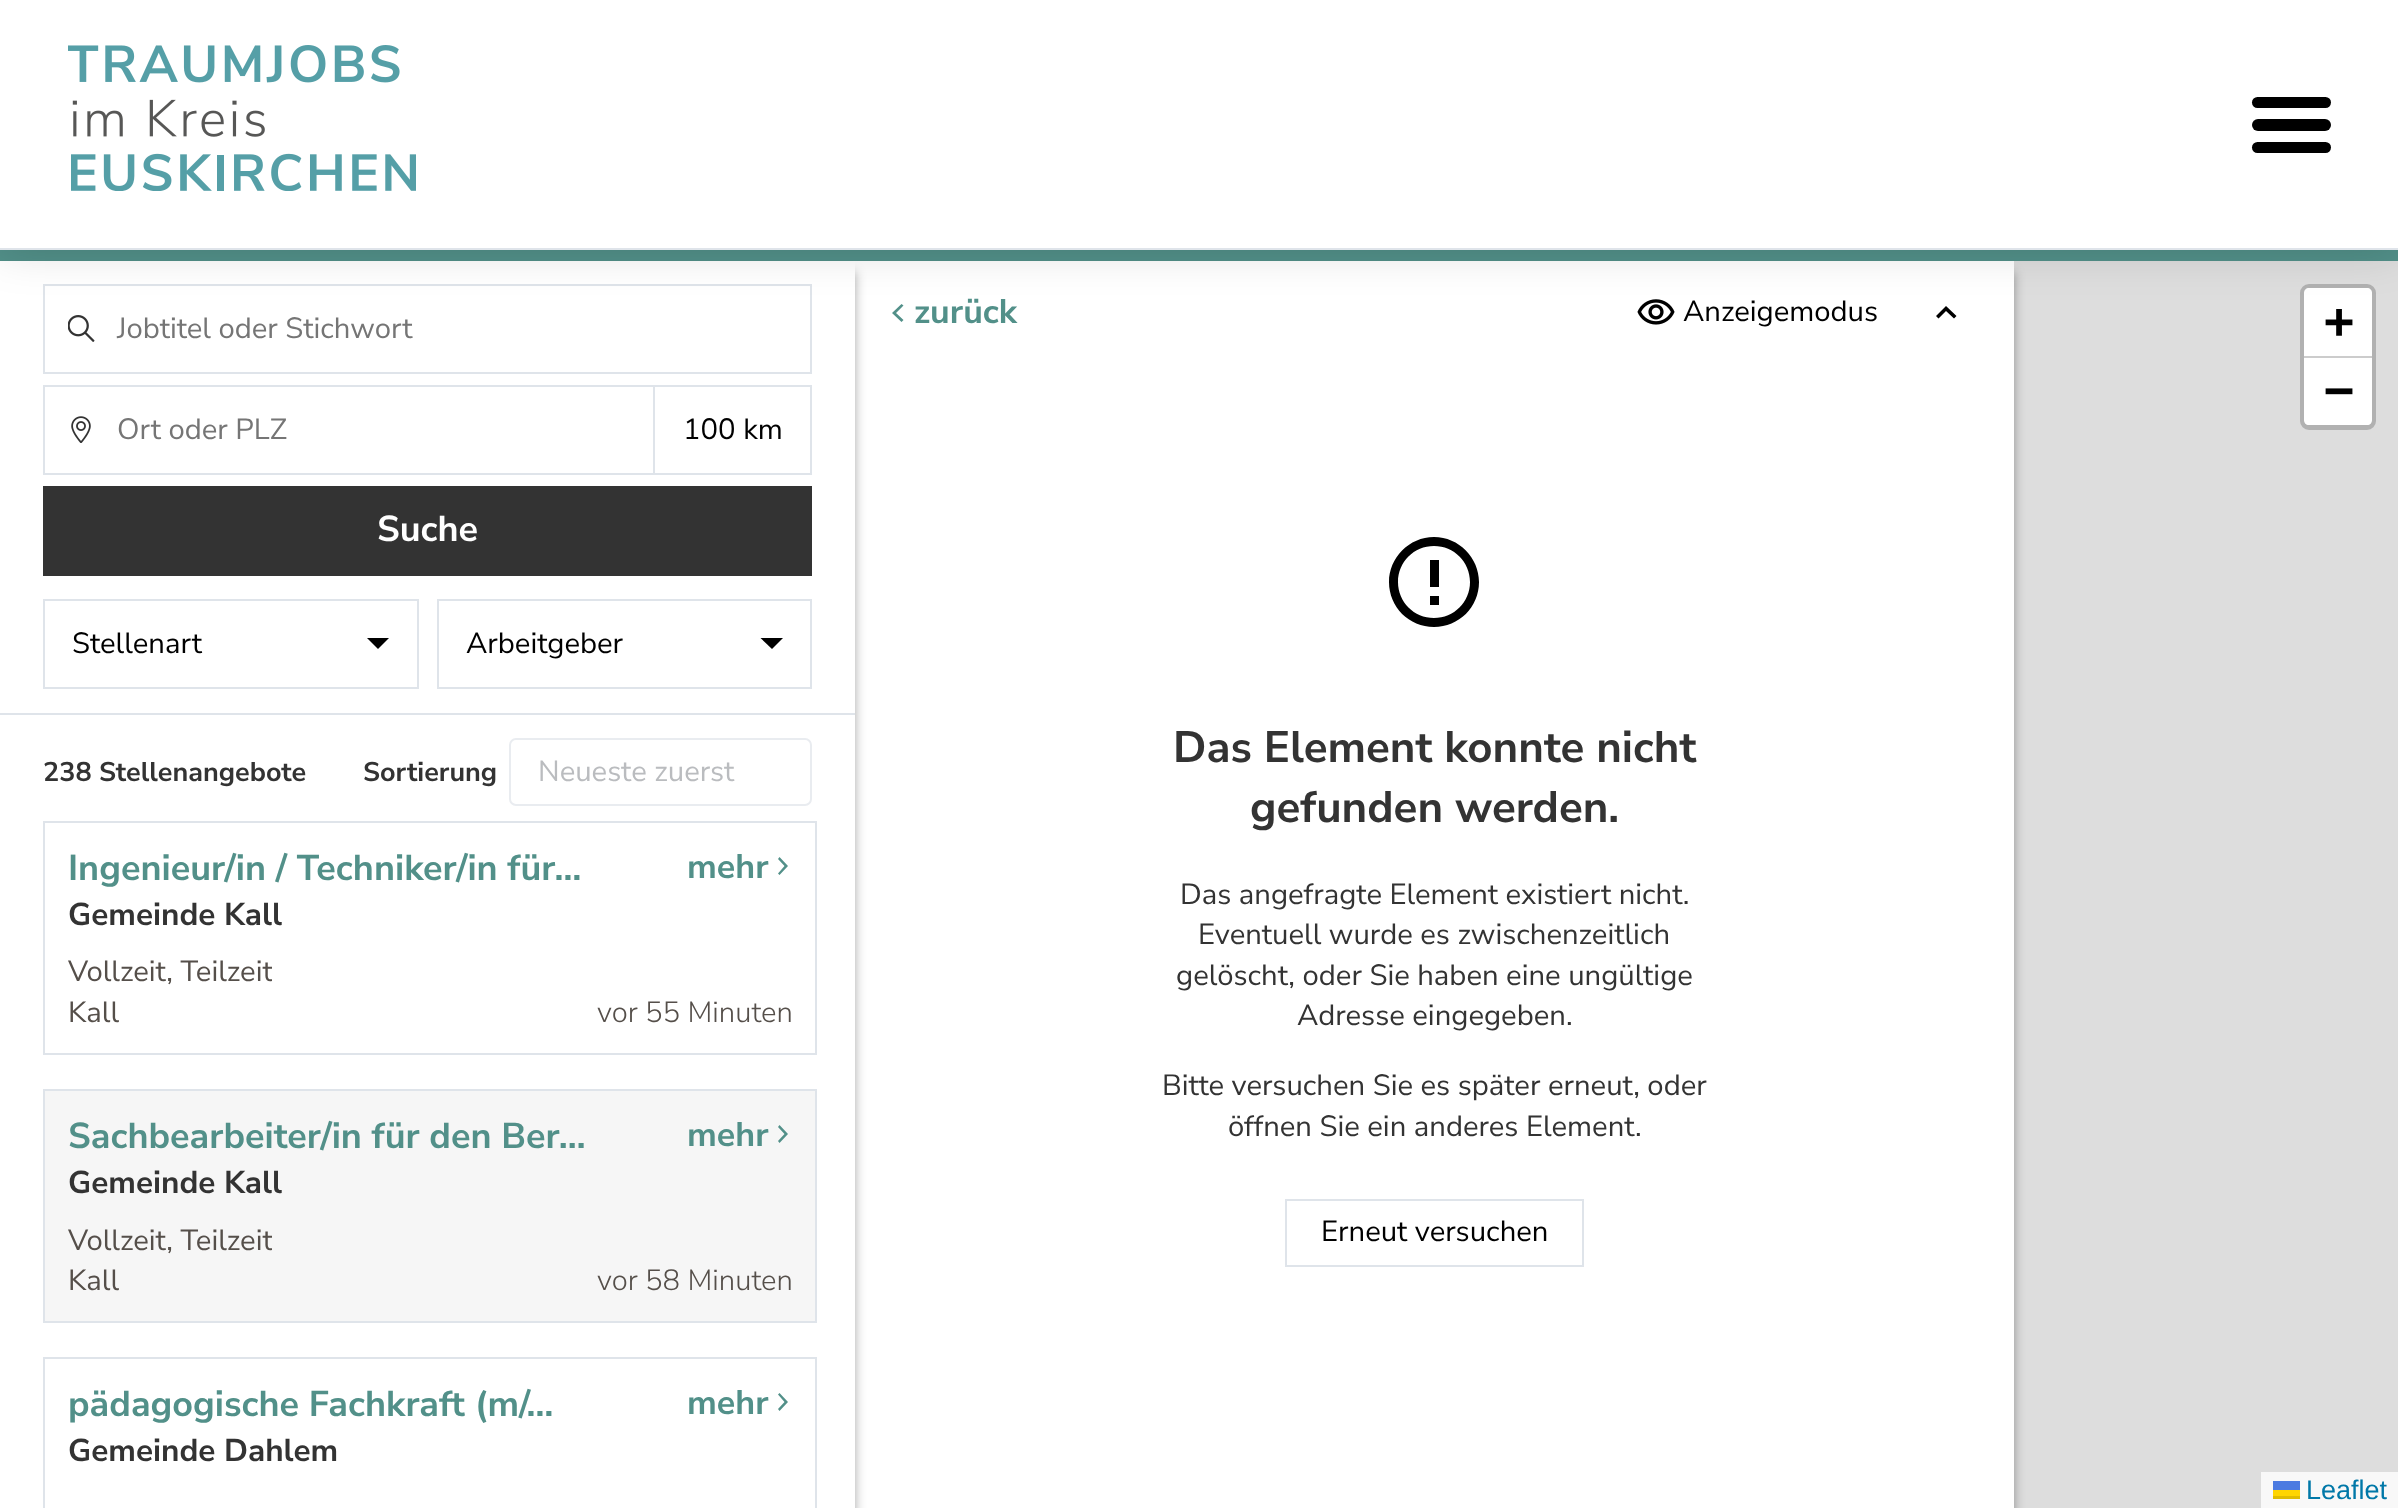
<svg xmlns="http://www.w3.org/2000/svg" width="2398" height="1508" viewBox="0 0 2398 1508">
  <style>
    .t1 { font: 29.25px Nunito Sans; fill: #757575; }
    .t2 { font: 29.25px Nunito Sans; fill: #000; }
    .t3 { font: bold 36px Nunito Sans; fill: #fff; }
    .t4 { font: bold 27px Nunito Sans; fill: #333; }
    .t5 { font: 29.25px Nunito Sans; fill: #babcbf; }
    .t6 { font: bold 36px Nunito Sans; fill: #529089; }
    .t7 { font: bold 31.5px Nunito Sans; fill: #333; }
    .t8 { font: 29.25px Nunito Sans; fill: #554f4a; }
    .t9 { font: bold 34px Nunito Sans; fill: #529089; }
    .t10 { font: 300 29.25px Nunito Sans; fill: #554f4a; }
    .t11 { font: bold 43.9px Nunito Sans; fill: #333; }
    .t12 { font: 29.25px Nunito Sans; fill: #333; }
    .t13 { font: bold 50px DejaVu Sans Mono; fill: #000; }
    .t14 { font: 27px Liberation Sans; fill: #0078a8; }
  </style>
  <defs>
    <clipPath id="clip1"><rect x="68" y="952" width="204" height="40"/></clipPath>
    <clipPath id="clip2"><rect x="68" y="1220" width="204" height="40"/></clipPath>
  </defs>
  <rect width="100%" height="100%" fill="#529089"/>
  <rect x="2014" y="261" width="384" height="1247" fill="#ddd"/>
  <rect x="855" y="272" width="1159" height="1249" fill="#00000059" filter="blur(5.5px)"/>
  <rect x="855" y="261" width="1159" height="1247" fill="#fff"/>
  <rect x="0" y="272" width="855" height="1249" fill="#00000059" filter="blur(5.5px)"/>
  <rect x="0" y="261" width="855" height="1247" fill="#fff"/>
  <rect x="44" y="285" width="767" height="88" fill="none" stroke="#dfe4ea" stroke-width="2"/>
  <image x="68" y="315" width="27" height="27" href="images/2.png"/>
  <path d="M892 313L901.5 304L903.5 305.5L896 313L903.5 320L901.5 322Z" fill="#529089"/>
  <image x="1637" y="299" width="38" height="26" href="images/4.png"/>
  <path d="M1946 306L1936 316L1938.5 318.5L1946 311L1954 318.5L1956.5 316Z" fill="#000"/>
  <rect x="2302.5" y="286.5" width="71" height="141" rx="6.5" fill="none" stroke="#b1b1b1" stroke-width="5"/>
  <path d="M2309 288H2367C2370 288 2372 290 2372 293V358H2304V293C2304 290 2306 288 2309 288Z" fill="#fff"/>
  <rect x="0" y="0" width="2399" height="250" fill="#00000026" filter="blur(22.5px)"/>
  <rect x="0" y="0" width="2398" height="248" fill="#fff"/>
  <rect x="0" y="248" width="2398" height="2" fill="#dfe4ea"/>
  <image x="68" y="45" width="348" height="146" href="images/1.png"/>
  <rect x="2252" y="97" width="79" height="11" rx="5.5" fill="#000"/>
  <rect x="2252" y="119" width="79" height="12" rx="6" fill="#000"/>
  <rect x="2252" y="142" width="79" height="11" rx="5.5" fill="#000"/>
  <rect x="0" y="713" width="855" height="2" fill="#dfe4ea"/>
  <text x="117" y="338" class="t1">Jobtitel oder Stichwort</text>
  <rect x="44" y="386" width="767" height="88" fill="none" stroke="#dfe4ea" stroke-width="2"/>
  <image x="71" y="416" width="20" height="27" href="images/3.png"/>
  <text x="117" y="439" class="t1">Ort oder PLZ</text>
  <rect x="653" y="387" width="2" height="86" fill="#dfe4ea"/>
  <text x="683" y="439" class="t2">100 km</text>
  <rect x="43" y="486" width="769" height="90" fill="#333"/>
  <text x="377" y="541" class="t3">Suche</text>
  <rect x="44" y="600" width="374" height="88" fill="none" stroke="#dfe4ea" stroke-width="2"/>
  <text x="72" y="653" class="t2">Stellenart</text>
  <path d="M367 638L378 649L389 638Z" fill="#000"/>
  <rect x="438" y="600" width="373" height="88" fill="none" stroke="#dfe4ea" stroke-width="2"/>
  <text x="466" y="653" class="t2">Arbeitgeber</text>
  <path d="M760.5 638L772 649L783 638Z" fill="#000"/>
  <text x="43" y="781" class="t4">238 Stellenangebote</text>
  <text x="363" y="781" class="t4">Sortierung</text>
  <rect x="510" y="739" width="301" height="66" rx="6" fill="none" stroke="#e9ecf0" stroke-width="2"/>
  <text x="538" y="781" class="t5">Neueste zuerst</text>
  <rect x="44" y="822" width="772" height="232" fill="none" stroke="#dfe4ea" stroke-width="2"/>
  <text x="68" y="880" class="t6">Ingenieur/in / Techniker/in für…</text>
  <text x="68" y="925" class="t7">Gemeinde Kall</text>
  <g clip-path="url(#clip1)">
    <text x="68" y="981" class="t8">Vollzeit, Teilzeit</text>
  </g>
  <text x="68" y="1022" class="t8">Kall</text>
  <text x="687" y="878" class="t9">mehr</text>
  <path d="M788 866L779.5 857L778 859L784.5 866L778 873.5L779.5 875Z" fill="#529089"/>
  <text x="597" y="1022" class="t10">vor 55 Minuten</text>
  <rect x="44" y="1090" width="772" height="232" fill="#f6f6f6" stroke="#dfe4ea" stroke-width="2"/>
  <text x="68" y="1148" class="t6">Sachbearbeiter/in für den Ber…</text>
  <text x="68" y="1193" class="t7">Gemeinde Kall</text>
  <g clip-path="url(#clip2)">
    <text x="68" y="1250" class="t8">Vollzeit, Teilzeit</text>
  </g>
  <text x="68" y="1290" class="t8">Kall</text>
  <text x="687" y="1146" class="t9">mehr</text>
  <path d="M788 1134L779.5 1125L778 1127L784.5 1134L778 1141L779.5 1143Z" fill="#529089"/>
  <text x="597" y="1290" class="t10">vor 58 Minuten</text>
  <rect x="44" y="1358" width="772" height="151" fill="none" stroke="#dfe4ea" stroke-width="2"/>
  <text x="68" y="1416" class="t6">pädagogische Fachkraft (m/…</text>
  <text x="68" y="1461" class="t7">Gemeinde Dahlem</text>
  <text x="687" y="1414" class="t9">mehr</text>
  <path d="M788 1402L779.5 1393L778 1394.5L784.5 1402L778 1409L779.5 1411Z" fill="#529089"/>
  <text x="914" y="323" class="t9">zurück</text>
  <text x="1683" y="321" class="t2">Anzeigemodus</text>
  <path d="M1430 596H1439V605H1430ZM1430 560H1439V587H1430ZM1434 537C1409 537 1389 558 1389 582C1389 607 1409 627 1434 627C1459 627 1479 607 1479 582C1479 558 1459 537 1434 537ZM1434 618C1414 618 1398 602 1398 582C1398 562 1414 546 1434 546C1454 546 1470 562 1470 582C1470 602 1454 618 1434 618Z" fill="#000"/>
  <text x="1173" y="762" class="t11">Das Element konnte nicht</text>
  <text x="1250" y="822" class="t11">gefunden werden.</text>
  <text x="1180" y="904" class="t12">Das angefragte Element existiert nicht.</text>
  <text x="1198" y="944" class="t12">Eventuell wurde es zwischenzeitlich</text>
  <text x="1176" y="985" class="t12">gelöscht, oder Sie haben eine ungültige</text>
  <text x="1297" y="1025" class="t12">Adresse eingegeben.</text>
  <text x="1162" y="1095" class="t12">Bitte versuchen Sie es später erneut, oder</text>
  <text x="1228" y="1136" class="t12">öffnen Sie ein anderes Element.</text>
  <rect x="1286" y="1200" width="297" height="66" fill="none" stroke="#dfe4ea" stroke-width="2"/>
  <text x="1321" y="1241" class="t2">Erneut versuchen</text>
  <rect x="2304" y="356" width="68" height="2" fill="#ccc"/>
  <text x="2324" y="338" class="t13">+</text>
  <path d="M2304 358H2372V420C2372 423 2370 425 2367 425H2309C2306 425 2304 423 2304 420Z" fill="#fff"/>
  <text x="2324" y="407" class="t13">−</text>
  <rect x="2261" y="1472" width="137" height="36" fill="#f8f8f8"/>
  <text x="2306" y="1499" class="t14">Leaflet</text>
  <rect x="2273" y="1481" width="27" height="9" fill="#4c7be1"/>
  <rect x="2273" y="1490" width="27" height="6" fill="#ffd500"/>
  <rect x="2273" y="1496" width="27" height="3" fill="#e0bc00"/>
</svg>
